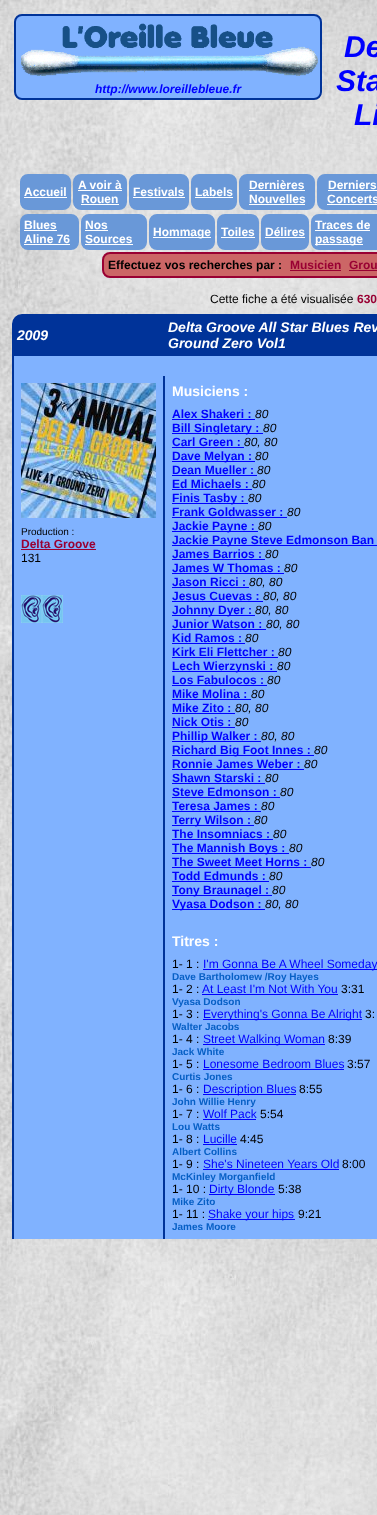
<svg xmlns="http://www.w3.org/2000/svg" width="377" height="1515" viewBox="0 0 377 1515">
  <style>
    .t1 { font: italic bold 12px Liberation Sans; fill: #00f; }
    .t2 { font: italic bold 30px Liberation Sans; fill: #00f; }
    .t3 { font: bold 12px Liberation Sans; fill: #fff; }
    .t4 { font: bold 12px Liberation Sans; fill: #000; }
    .t5 { font: bold 12px Liberation Sans; fill: #903; }
    .t6 { font: 12px Liberation Sans; fill: #000; }
    .t7 { font: italic bold 14px Liberation Sans; fill: #fff; }
    .t8 { font: 10px Liberation Sans; fill: #000; }
    .t9 { font: bold 14px Liberation Sans; fill: #fff; }
    .t10 { font: bold 12px Liberation Sans; fill: #00f; }
    .t11 { font: italic 12px Liberation Sans; fill: #000; }
    .t12 { font: 12px Liberation Sans; fill: #00f; }
    .t13 { font: bold 10px Liberation Sans; fill: #065fc5; }
  </style>
  <rect width="100%" height="100%" fill="#fff"/>
  <image x="0" y="0" width="377" height="1515" href="images/1.png"/>
  <rect x="15" y="15" width="306" height="84" rx="7" fill="#80b2ff" stroke="#039" stroke-width="2"/>
  <image x="21" y="23" width="297" height="53" href="images/2.png"/>
  <text x="95" y="93" class="t1">http://www.loreillebleue.fr</text>
  <text x="344" y="57" class="t2">De</text>
  <text x="336" y="91" class="t2">Sta</text>
  <text x="354" y="125" class="t2">Li</text>
  <rect x="21" y="175" width="49" height="34" rx="7" fill="#6998d8" stroke="#6998d8" stroke-width="2"/>
  <text x="24" y="196" class="t3">Accueil</text>
  <rect x="24" y="197" width="43" height="1" fill="#fff"/>
  <rect x="74" y="175" width="52" height="34" rx="7" fill="#6998d8" stroke="#6998d8" stroke-width="2"/>
  <text x="78" y="189" class="t3">A voir à</text>
  <rect x="78" y="190" width="44" height="1" fill="#fff"/>
  <text x="81" y="203" class="t3">Rouen</text>
  <rect x="81" y="204" width="38" height="1" fill="#fff"/>
  <rect x="130" y="175" width="58" height="34" rx="7" fill="#6998d8" stroke="#6998d8" stroke-width="2"/>
  <text x="133" y="196" class="t3">Festivals</text>
  <rect x="133" y="197" width="52" height="1" fill="#fff"/>
  <rect x="192" y="175" width="44" height="34" rx="7" fill="#6998d8" stroke="#6998d8" stroke-width="2"/>
  <text x="195" y="196" class="t3">Labels</text>
  <rect x="195" y="197" width="38" height="1" fill="#fff"/>
  <rect x="240" y="175" width="74" height="34" rx="7" fill="#6998d8" stroke="#6998d8" stroke-width="2"/>
  <text x="249" y="189" class="t3">Dernières</text>
  <rect x="249" y="190" width="56" height="1" fill="#fff"/>
  <text x="249" y="203" class="t3">Nouvelles</text>
  <rect x="249" y="204" width="56" height="1" fill="#fff"/>
  <rect x="318" y="175" width="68" height="34" rx="7" fill="#6998d8" stroke="#6998d8" stroke-width="2"/>
  <text x="328" y="189" class="t3">Derniers</text>
  <rect x="328" y="190" width="49" height="1" fill="#fff"/>
  <text x="327" y="203" class="t3">Concerts</text>
  <rect x="327" y="204" width="50" height="1" fill="#fff"/>
  <rect x="21" y="215" width="57" height="34" rx="7" fill="#6998d8" stroke="#6998d8" stroke-width="2"/>
  <text x="24" y="229" class="t3">Blues</text>
  <rect x="24" y="230" width="33" height="1" fill="#fff"/>
  <text x="24" y="243" class="t3">Aline 76</text>
  <rect x="24" y="244" width="46" height="1" fill="#fff"/>
  <rect x="82" y="215" width="64" height="34" rx="7" fill="#6998d8" stroke="#6998d8" stroke-width="2"/>
  <text x="85" y="229" class="t3">Nos</text>
  <rect x="85" y="230" width="23" height="1" fill="#fff"/>
  <text x="85" y="243" class="t3">Sources</text>
  <rect x="85" y="244" width="48" height="1" fill="#fff"/>
  <rect x="150" y="215" width="64" height="34" rx="7" fill="#6998d8" stroke="#6998d8" stroke-width="2"/>
  <rect x="153" y="237" width="58" height="1" fill="#fff"/>
  <text x="153" y="236" class="t3">Hommage</text>
  <rect x="218" y="215" width="40" height="34" rx="7" fill="#6998d8" stroke="#6998d8" stroke-width="2"/>
  <text x="221" y="236" class="t3">Toiles</text>
  <rect x="221" y="237" width="34" height="1" fill="#fff"/>
  <rect x="262" y="215" width="46" height="34" rx="7" fill="#6998d8" stroke="#6998d8" stroke-width="2"/>
  <text x="265" y="236" class="t3">Délires</text>
  <rect x="265" y="237" width="40" height="1" fill="#fff"/>
  <rect x="312" y="215" width="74" height="34" rx="7" fill="#6998d8" stroke="#6998d8" stroke-width="2"/>
  <text x="315" y="229" class="t3">Traces de</text>
  <rect x="315" y="230" width="55" height="1" fill="#fff"/>
  <rect x="315" y="244" width="48" height="1" fill="#fff"/>
  <text x="315" y="243" class="t3">passage</text>
  <rect x="103" y="253" width="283" height="24" rx="7" fill="#c66" stroke="#903" stroke-width="2"/>
  <text x="108" y="269" class="t4">Effectuez vos recherches par :</text>
  <text x="290" y="269" class="t5">Musicien</text>
  <rect x="290" y="270" width="51" height="1" fill="#903"/>
  <text x="349" y="269" class="t5">Grou</text>
  <rect x="349" y="270" width="28" height="1" fill="#903"/>
  <text x="210" y="303" class="t6">Cette fiche a été visualisée</text>
  <text x="357" y="303" class="t5">630</text>
  <path d="M22 315H162V355H13V324C13 319 17 315 22 315Z" fill="#039" stroke="#039" stroke-width="2"/>
  <text x="17" y="340" class="t7">2009</text>
  <rect x="163" y="314" width="214" height="42" fill="#039"/>
  <text x="168" y="332" class="t7">Delta Groove All Star Blues Rev</text>
  <text x="168" y="348" class="t7">Ground Zero Vol1</text>
  <rect x="14" y="356" width="363" height="883" fill="#80b2ff"/>
  <rect x="12" y="356" width="2" height="883" fill="#039"/>
  <image x="21" y="383" width="135" height="135" href="images/3.png"/>
  <text x="21" y="535" class="t8">Production :</text>
  <text x="21" y="548" class="t5">Delta Groove</text>
  <rect x="21" y="549" width="75" height="1" fill="#903"/>
  <text x="21" y="562" class="t6">131</text>
  <image x="21" y="595" width="21" height="28" href="images/4.png"/>
  <image x="42" y="595" width="21" height="28" href="images/4.png"/>
  <rect x="163" y="376" width="2" height="863" fill="#039"/>
  <text x="172" y="396" class="t9">Musiciens :</text>
  <text x="172" y="418" class="t10">Alex Shakeri :</text>
  <rect x="172" y="419" width="83" height="1" fill="#00f"/>
  <text x="255" y="418" class="t11">80</text>
  <rect x="172" y="433" width="91" height="1" fill="#00f"/>
  <text x="172" y="432" class="t10">Bill Singletary :</text>
  <text x="263" y="432" class="t11">80</text>
  <text x="172" y="446" class="t10">Carl Green :</text>
  <text x="244" y="446" class="t11">80, 80</text>
  <rect x="172" y="447" width="72" height="1" fill="#00f"/>
  <rect x="172" y="461" width="83" height="1" fill="#00f"/>
  <text x="172" y="460" class="t10">Dave Melyan :</text>
  <text x="255" y="460" class="t11">80</text>
  <text x="172" y="474" class="t10">Dean Mueller :</text>
  <rect x="172" y="475" width="85" height="1" fill="#00f"/>
  <text x="257" y="474" class="t11">80</text>
  <text x="172" y="488" class="t10">Ed Michaels :</text>
  <rect x="172" y="489" width="80" height="1" fill="#00f"/>
  <text x="252" y="488" class="t11">80</text>
  <rect x="172" y="503" width="76" height="1" fill="#00f"/>
  <text x="172" y="502" class="t10">Finis Tasby :</text>
  <text x="248" y="502" class="t11">80</text>
  <text x="172" y="516" class="t10">Frank Goldwasser :</text>
  <rect x="172" y="517" width="115" height="1" fill="#00f"/>
  <text x="287" y="516" class="t11">80</text>
  <rect x="172" y="531" width="86" height="1" fill="#00f"/>
  <text x="172" y="530" class="t10">Jackie Payne :</text>
  <text x="258" y="530" class="t11">80</text>
  <rect x="172" y="545" width="205" height="1" fill="#00f"/>
  <text x="172" y="544" class="t10">Jackie Payne Steve Edmonson Ban</text>
  <text x="172" y="558" class="t10">James Barrios :</text>
  <rect x="172" y="559" width="93" height="1" fill="#00f"/>
  <text x="265" y="558" class="t11">80</text>
  <text x="172" y="572" class="t10">James W Thomas :</text>
  <rect x="172" y="573" width="112" height="1" fill="#00f"/>
  <text x="284" y="572" class="t11">80</text>
  <text x="172" y="586" class="t10">Jason Ricci :</text>
  <text x="249" y="586" class="t11">80, 80</text>
  <rect x="172" y="587" width="77" height="1" fill="#00f"/>
  <text x="172" y="600" class="t10">Jesus Cuevas :</text>
  <text x="263" y="600" class="t11">80, 80</text>
  <rect x="172" y="601" width="91" height="1" fill="#00f"/>
  <rect x="172" y="615" width="83" height="1" fill="#00f"/>
  <text x="172" y="614" class="t10">Johnny Dyer :</text>
  <text x="255" y="614" class="t11">80, 80</text>
  <text x="172" y="628" class="t10">Junior Watson :</text>
  <rect x="172" y="629" width="94" height="1" fill="#00f"/>
  <text x="266" y="628" class="t11">80, 80</text>
  <text x="172" y="642" class="t10">Kid Ramos :</text>
  <rect x="172" y="643" width="73" height="1" fill="#00f"/>
  <text x="245" y="642" class="t11">80</text>
  <text x="172" y="656" class="t10">Kirk Eli Flettcher :</text>
  <rect x="172" y="657" width="106" height="1" fill="#00f"/>
  <text x="278" y="656" class="t11">80</text>
  <rect x="172" y="671" width="105" height="1" fill="#00f"/>
  <text x="172" y="670" class="t10">Lech Wierzynski :</text>
  <text x="277" y="670" class="t11">80</text>
  <text x="172" y="684" class="t10">Los Fabulocos :</text>
  <rect x="172" y="685" width="95" height="1" fill="#00f"/>
  <text x="267" y="684" class="t11">80</text>
  <text x="172" y="698" class="t10">Mike Molina :</text>
  <rect x="172" y="699" width="79" height="1" fill="#00f"/>
  <text x="251" y="698" class="t11">80</text>
  <text x="172" y="712" class="t10">Mike Zito :</text>
  <text x="235" y="712" class="t11">80, 80</text>
  <rect x="172" y="713" width="63" height="1" fill="#00f"/>
  <text x="172" y="726" class="t10">Nick Otis :</text>
  <rect x="172" y="727" width="63" height="1" fill="#00f"/>
  <text x="235" y="726" class="t11">80</text>
  <rect x="172" y="741" width="89" height="1" fill="#00f"/>
  <text x="172" y="740" class="t10">Phillip Walker :</text>
  <text x="261" y="740" class="t11">80, 80</text>
  <rect x="172" y="755" width="142" height="1" fill="#00f"/>
  <text x="172" y="754" class="t10">Richard Big Foot Innes :</text>
  <text x="314" y="754" class="t11">80</text>
  <text x="172" y="768" class="t10">Ronnie James Weber :</text>
  <rect x="172" y="769" width="132" height="1" fill="#00f"/>
  <text x="304" y="768" class="t11">80</text>
  <text x="172" y="782" class="t10">Shawn Starski :</text>
  <rect x="172" y="783" width="93" height="1" fill="#00f"/>
  <text x="265" y="782" class="t11">80</text>
  <text x="172" y="796" class="t10">Steve Edmonson :</text>
  <rect x="172" y="797" width="108" height="1" fill="#00f"/>
  <text x="280" y="796" class="t11">80</text>
  <text x="172" y="810" class="t10">Teresa James :</text>
  <rect x="172" y="811" width="89" height="1" fill="#00f"/>
  <text x="261" y="810" class="t11">80</text>
  <rect x="172" y="825" width="82" height="1" fill="#00f"/>
  <text x="172" y="824" class="t10">Terry Wilson :</text>
  <text x="254" y="824" class="t11">80</text>
  <text x="172" y="838" class="t10">The Insomniacs :</text>
  <rect x="172" y="839" width="101" height="1" fill="#00f"/>
  <text x="273" y="838" class="t11">80</text>
  <rect x="172" y="853" width="117" height="1" fill="#00f"/>
  <text x="172" y="852" class="t10">The Mannish Boys :</text>
  <text x="289" y="852" class="t11">80</text>
  <text x="172" y="866" class="t10">The Sweet Meet Horns :</text>
  <rect x="172" y="867" width="139" height="1" fill="#00f"/>
  <text x="311" y="866" class="t11">80</text>
  <text x="172" y="880" class="t10">Todd Edmunds :</text>
  <rect x="172" y="881" width="97" height="1" fill="#00f"/>
  <text x="269" y="880" class="t11">80</text>
  <rect x="172" y="895" width="100" height="1" fill="#00f"/>
  <text x="172" y="894" class="t10">Tony Braunagel :</text>
  <text x="272" y="894" class="t11">80</text>
  <rect x="172" y="909" width="93" height="1" fill="#00f"/>
  <text x="172" y="908" class="t10">Vyasa Dodson :</text>
  <text x="265" y="908" class="t11">80, 80</text>
  <text x="172" y="946" class="t9">Titres :</text>
  <text x="172" y="968" class="t6">1- 1 :</text>
  <rect x="203" y="969" width="174" height="1" fill="#00f"/>
  <text x="203" y="968" class="t12">I'm Gonna Be A Wheel Someday</text>
  <text x="172" y="980" class="t13">Dave Bartholomew /Roy Hayes</text>
  <text x="172" y="993" class="t6">1-</text>
  <text x="186" y="993" class="t6">2 :</text>
  <text x="202" y="993" class="t12">At Least I'm Not With You</text>
  <rect x="202" y="994" width="136" height="1" fill="#00f"/>
  <text x="341" y="993" class="t6">3:31</text>
  <text x="172" y="1005" class="t13">Vyasa Dodson</text>
  <text x="172" y="1018" class="t6">1- 3 :</text>
  <rect x="203" y="1019" width="159" height="1" fill="#00f"/>
  <text x="203" y="1018" class="t12">Everything's Gonna Be Alright</text>
  <text x="365" y="1018" class="t6">3:</text>
  <text x="172" y="1030" class="t13">Walter Jacobs</text>
  <text x="172" y="1043" class="t6">1- 4 :</text>
  <rect x="203" y="1044" width="122" height="1" fill="#00f"/>
  <text x="203" y="1043" class="t12">Street Walking Woman</text>
  <text x="328" y="1043" class="t6">8:39</text>
  <text x="172" y="1055" class="t13">Jack White</text>
  <text x="172" y="1068" class="t6">1- 5 :</text>
  <text x="203" y="1068" class="t12">Lonesome Bedroom Blues</text>
  <rect x="203" y="1069" width="141" height="1" fill="#00f"/>
  <text x="347" y="1068" class="t6">3:57</text>
  <text x="172" y="1080" class="t13">Curtis Jones</text>
  <text x="172" y="1093" class="t6">1- 6 :</text>
  <rect x="203" y="1094" width="93" height="1" fill="#00f"/>
  <text x="203" y="1093" class="t12">Description Blues</text>
  <text x="299" y="1093" class="t6">8:55</text>
  <text x="172" y="1105" class="t13">John Willie Henry</text>
  <text x="172" y="1118" class="t6">1- 7 :</text>
  <text x="203" y="1118" class="t12">Wolf Pack</text>
  <rect x="203" y="1119" width="53" height="1" fill="#00f"/>
  <text x="260" y="1118" class="t6">5:54</text>
  <text x="172" y="1130" class="t13">Lou Watts</text>
  <text x="172" y="1143" class="t6">1- 8 :</text>
  <text x="203" y="1143" class="t12">Lucille</text>
  <rect x="203" y="1144" width="34" height="1" fill="#00f"/>
  <text x="240" y="1143" class="t6">4:45</text>
  <text x="172" y="1155" class="t13">Albert Collins</text>
  <text x="172" y="1168" class="t6">1- 9 :</text>
  <text x="203" y="1168" class="t12">She's Nineteen Years Old</text>
  <rect x="203" y="1169" width="136" height="1" fill="#00f"/>
  <text x="342" y="1168" class="t6">8:00</text>
  <text x="172" y="1180" class="t13">McKinley Morganfield</text>
  <text x="172" y="1193" class="t6">1- 10 :</text>
  <rect x="209" y="1194" width="66" height="1" fill="#00f"/>
  <text x="209" y="1193" class="t12">Dirty Blonde</text>
  <text x="278" y="1193" class="t6">5:38</text>
  <text x="172" y="1205" class="t13">Mike Zito</text>
  <text x="172" y="1218" class="t6">1- 11 :</text>
  <rect x="208" y="1219" width="87" height="1" fill="#00f"/>
  <text x="208" y="1218" class="t12">Shake your hips</text>
  <text x="298" y="1218" class="t6">9:21</text>
  <text x="172" y="1230" class="t13">James Moore</text>
</svg>
